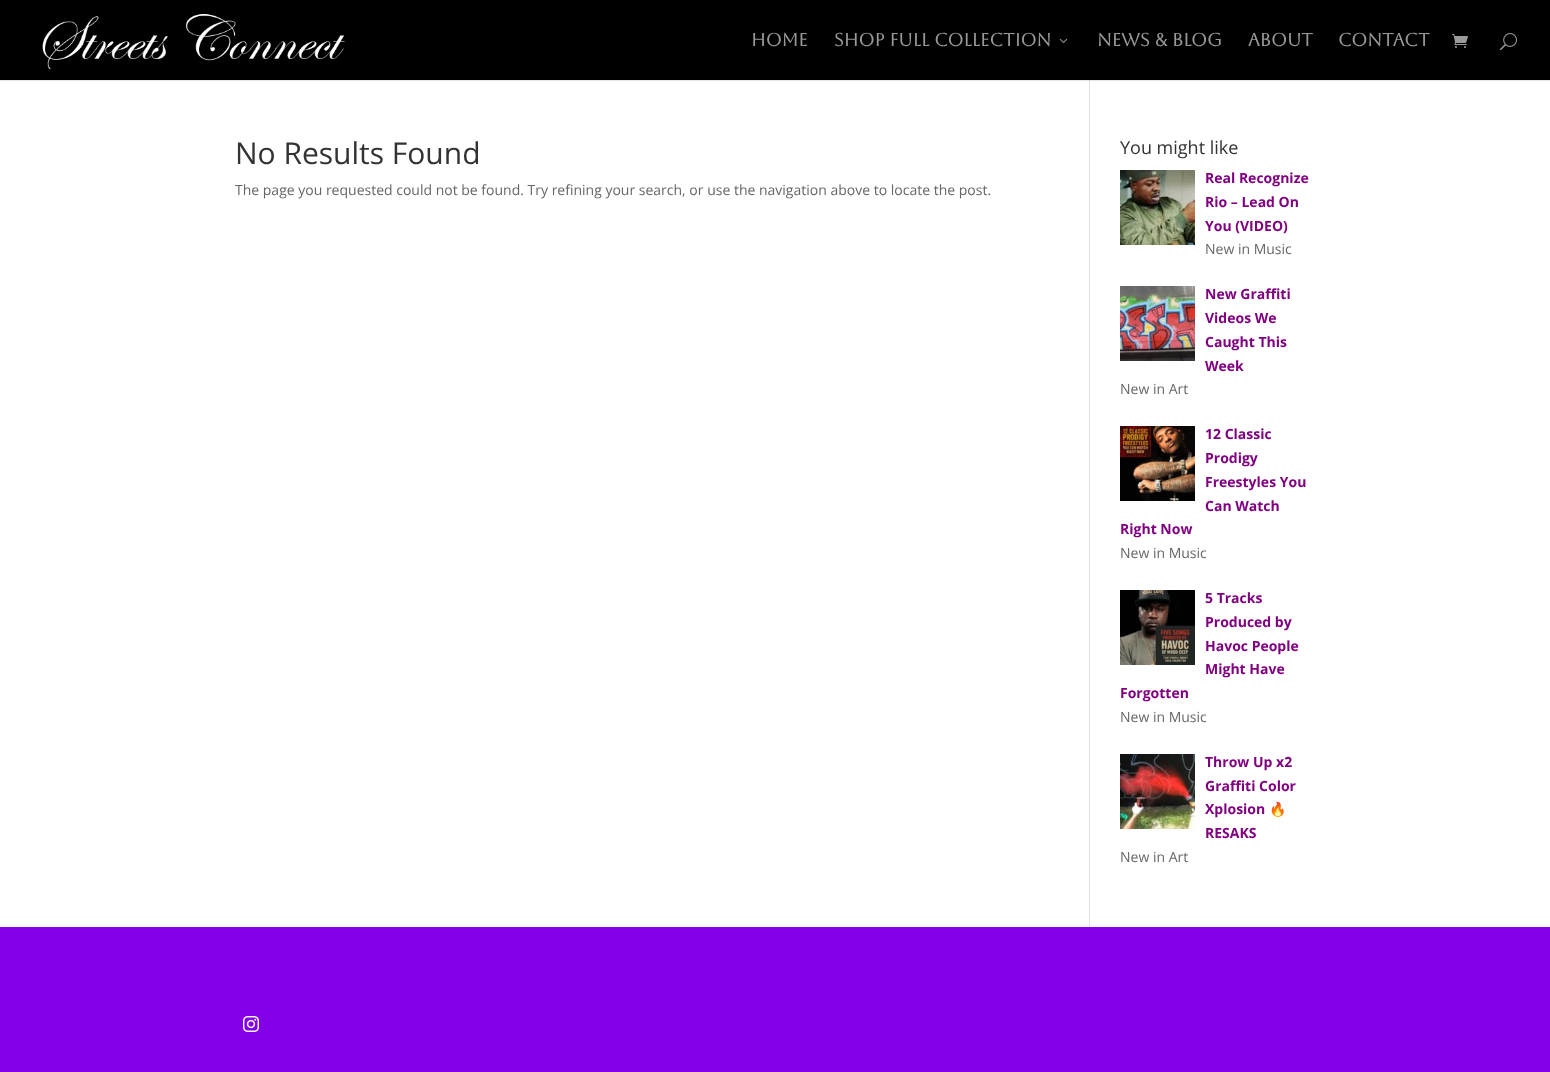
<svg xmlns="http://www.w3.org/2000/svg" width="1550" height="1072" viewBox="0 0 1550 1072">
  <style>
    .t1 { font: bold 18px Aboreto; fill: #999; }
    .t2 { font: 30px Open Sans; fill: #333; }
    .t3 { font: 14px Open Sans; fill: #666; }
    .t4 { font: 18px Open Sans; fill: #333; }
    .t5 { font: bold 14px Open Sans; fill: #800080; }
    .t6 { font: bold 14px Noto Color Emoji; fill: #800080; }
  </style>
  <rect width="100%" height="100%" fill="#fff"/>
  <rect x="0" y="80" width="1550" height="1" fill="#e6e6e6"/>
  <rect x="0" y="0" width="1550" height="80" fill="#000"/>
  <image x="42" y="13" width="303" height="57" href="images/1.png"/>
  <text x="751" y="46" class="t1">Home</text>
  <text x="834" y="46" class="t1">Shop Full Collection</text>
  <image x="1059" y="38" width="9" height="5" href="images/2.png"/>
  <text x="1097" y="46" class="t1">News &amp; Blog</text>
  <text x="1248" y="46" class="t1">About</text>
  <text x="1338" y="46" class="t1">Contact</text>
  <image x="1452" y="34" width="16" height="14" href="images/3.png"/>
  <image x="1500" y="33" width="17" height="18" href="images/4.png"/>
  <rect x="1089" y="80" width="1" height="847" fill="#e2e2e2"/>
  <rect x="1089" y="80" width="1" height="1" fill="#cbcbcb"/>
  <text x="235" y="164" class="t2">No Results Found</text>
  <text x="235" y="195" class="t3">The page you requested could not be found. Try refining your search, or use the navigation above to locate the post.</text>
  <text x="1120" y="154" class="t4">You might like</text>
  <image x="1120" y="170" width="75" height="75" href="images/5.png"/>
  <text x="1205" y="183" class="t5">Real Recognize</text>
  <text x="1205" y="207" class="t5">Rio – Lead On</text>
  <text x="1205" y="231" class="t5">You (VIDEO)</text>
  <text x="1205" y="254" class="t3">New in Music</text>
  <image x="1120" y="286" width="75" height="75" href="images/6.png"/>
  <text x="1205" y="299" class="t5">New Graffiti</text>
  <text x="1205" y="323" class="t5">Videos We</text>
  <text x="1205" y="347" class="t5">Caught This</text>
  <text x="1205" y="371" class="t5">Week</text>
  <text x="1120" y="394" class="t3">New in Art</text>
  <image x="1120" y="426" width="75" height="75" href="images/7.png"/>
  <text x="1205" y="439" class="t5">12 Classic</text>
  <text x="1205" y="463" class="t5">Prodigy</text>
  <text x="1205" y="487" class="t5">Freestyles You</text>
  <text x="1205" y="511" class="t5">Can Watch</text>
  <text x="1120" y="534" class="t5">Right Now</text>
  <text x="1120" y="558" class="t3">New in Music</text>
  <image x="1120" y="590" width="75" height="75" href="images/8.png"/>
  <text x="1205" y="603" class="t5">5 Tracks</text>
  <text x="1205" y="627" class="t5">Produced by</text>
  <text x="1205" y="651" class="t5">Havoc People</text>
  <text x="1205" y="674" class="t5">Might Have</text>
  <text x="1120" y="698" class="t5">Forgotten</text>
  <text x="1120" y="722" class="t3">New in Music</text>
  <image x="1120" y="754" width="75" height="75" href="images/9.png"/>
  <text x="1205" y="767" class="t5">Throw Up x2</text>
  <text x="1205" y="791" class="t5">Graffiti Color</text>
  <text x="1205" y="814" class="t5">Xplosion</text>
  <text x="1269" y="814" class="t6">🔥</text>
  <text x="1205" y="838" class="t5">RESAKS</text>
  <text x="1120" y="862" class="t3">New in Art</text>
  <rect x="0" y="927" width="1550" height="145" fill="#8300e9"/>
  <image x="243" y="1016" width="16" height="16" href="images/10.png"/>
</svg>
